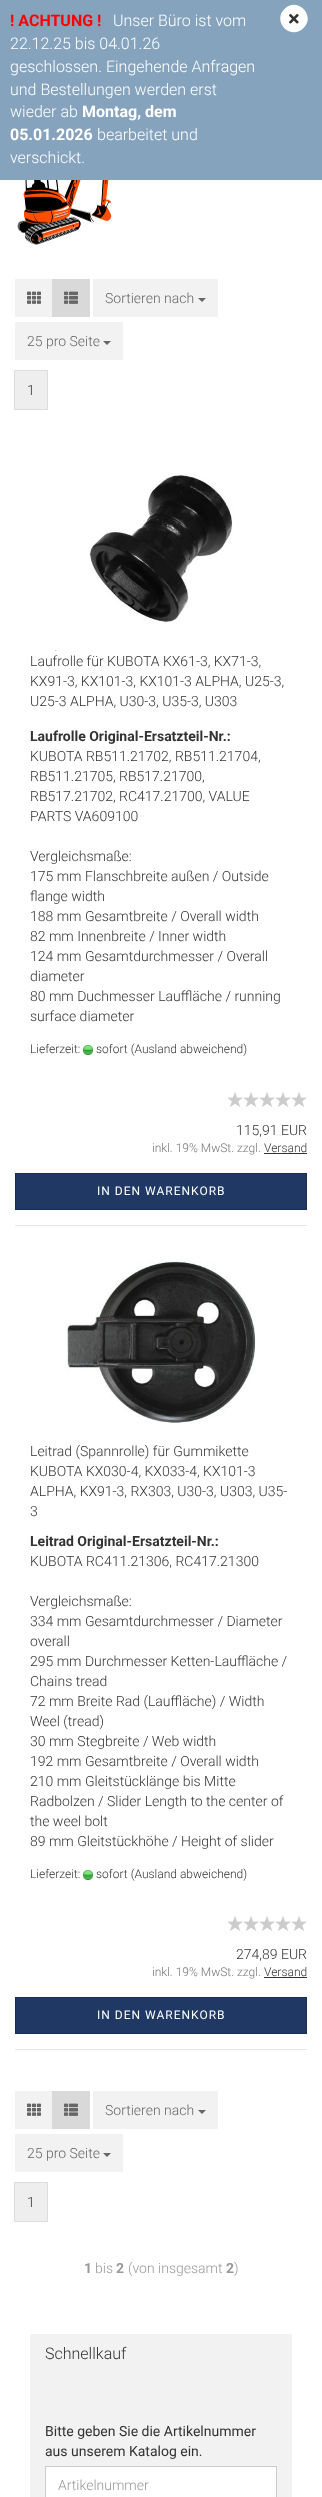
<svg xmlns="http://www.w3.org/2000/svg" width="322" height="2497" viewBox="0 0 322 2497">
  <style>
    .t1 { font: bold 16px Roboto; fill: #f00; }
    .t2 { font: 300 16px Roboto; fill: #fff; }
    .t3 { font: bold 16px Roboto; fill: #fff; }
    .t4 { font: 300 14px Roboto; fill: #666; }
    .t5 { font: 300 14px Roboto; fill: #333; }
    .t6 { font: bold 14px Roboto; fill: #333; }
    .t7 { font: 300 12px Roboto; fill: #333; }
    .t8 { font: 300 12px Roboto; fill: #777; }
    .t9 { font: 12px Roboto; letter-spacing: 1px; fill: #fff; }
    .t10 { font: bold 14px Roboto; fill: #999; }
    .t11 { font: 300 14px Roboto; fill: #999; }
    .t12 { font: 300 16px Roboto; fill: #333; }
    .t13 { font: 14px Roboto; fill: #333; }
  </style>
  <rect width="100%" height="100%" fill="#fff"/>
  <rect x="0" y="0" width="322" height="180" fill="#86a3bd"/>
  <text x="10" y="26" class="t1">! ACHTUNG !</text>
  <text x="113" y="26" class="t2">Unser Büro ist vom</text>
  <text x="10" y="49" class="t2">22.12.25 bis 04.01.26</text>
  <text x="10" y="72" class="t2">geschlossen. Eingehende Anfragen</text>
  <text x="10" y="95" class="t2">und Bestellungen werden erst</text>
  <text x="10" y="117" class="t2">wieder ab</text>
  <text x="82" y="117" class="t3">Montag, dem</text>
  <text x="10" y="140" class="t3">05.01.2026</text>
  <text x="97" y="140" class="t2">bearbeitet und</text>
  <text x="10" y="163" class="t2">verschickt.</text>
  <path d="M284.5 9C297-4 316.5 15.5 303.5 28C291 41 271.5 21.5 284.5 9Z" fill="#fff"/>
  <image x="289" y="14" width="10" height="10" href="images/1.png"/>
  <image x="17" y="180" width="95" height="65" href="images/2.png"/>
  <rect x="15" y="279" width="37" height="38" fill="#f2f2f2"/>
  <image x="27" y="291" width="14" height="13" href="images/3.png"/>
  <rect x="52" y="279" width="38" height="38" fill="#d9d9d9"/>
  <image x="64" y="291" width="14" height="13" href="images/4.png"/>
  <rect x="93" y="279" width="125" height="38" fill="#f2f2f2"/>
  <text x="105" y="303" class="t4">Sortieren nach</text>
  <path d="M198 298H206L202 302Z" fill="#666"/>
  <rect x="15" y="322" width="108" height="38" fill="#f2f2f2"/>
  <text x="27" y="346" class="t4">25 pro Seite</text>
  <path d="M103 341H111L107 345Z" fill="#666"/>
  <rect x="14.5" y="370.5" width="33" height="39" fill="#eee" stroke="#ddd"/>
  <text x="27" y="395" class="t5">1</text>
  <rect x="15" y="1225" width="292" height="1" fill="#e7e7e7"/>
  <image x="55" y="474" width="178" height="177" href="images/5.png"/>
  <text x="30" y="666" class="t5">Laufrolle für KUBOTA KX61-3, KX71-3,</text>
  <text x="30" y="686" class="t5">KX91-3, KX101-3, KX101-3 ALPHA, U25-3,</text>
  <text x="30" y="706" class="t5">U25-3 ALPHA, U30-3, U35-3, U303</text>
  <text x="30" y="741" class="t6">Laufrolle Original-Ersatzteil-Nr.:</text>
  <text x="30" y="761" class="t5">KUBOTA RB511.21702, RB511.21704,</text>
  <text x="30" y="781" class="t5">RB511.21705, RB517.21700,</text>
  <text x="30" y="801" class="t5">RB517.21702, RC417.21700, VALUE</text>
  <text x="30" y="821" class="t5">PARTS VA609100</text>
  <text x="30" y="861" class="t5">Vergleichsmaße:</text>
  <text x="30" y="881" class="t5">175 mm Flanschbreite außen / Outside</text>
  <text x="30" y="901" class="t5">flange width</text>
  <text x="30" y="921" class="t5">188 mm Gesamtbreite / Overall width</text>
  <text x="30" y="941" class="t5">82 mm Innenbreite / Inner width</text>
  <text x="30" y="961" class="t5">124 mm Gesamtdurchmesser / Overall</text>
  <text x="30" y="981" class="t5">diameter</text>
  <text x="30" y="1001" class="t5">80 mm Duchmesser Lauffläche / running</text>
  <text x="30" y="1021" class="t5">surface diameter</text>
  <text x="30" y="1053" class="t7">Lieferzeit:</text>
  <image x="83" y="1045" width="10" height="10" href="images/6.png"/>
  <text x="96" y="1053" class="t7">sofort (Ausland abweichend)</text>
  <image x="227" y="1092" width="16" height="15" href="images/7.png"/>
  <image x="243" y="1092" width="16" height="15" href="images/7.png"/>
  <image x="259" y="1092" width="16" height="15" href="images/7.png"/>
  <image x="275" y="1092" width="16" height="15" href="images/7.png"/>
  <image x="291" y="1092" width="16" height="15" href="images/7.png"/>
  <text x="236" y="1135" class="t5">115,91 EUR</text>
  <text x="152" y="1152" class="t8">inkl. 19% MwSt. zzgl.</text>
  <text x="264" y="1152" class="t7">Versand</text>
  <rect x="264" y="1153" width="43" height="1" fill="#333"/>
  <rect x="15.5" y="1173.5" width="291" height="36" fill="#203864" stroke="#1a2d51"/>
  <text x="97" y="1195" class="t9">IN DEN WARENKORB</text>
  <rect x="15" y="2049" width="292" height="1" fill="#e7e7e7"/>
  <image x="65" y="1261" width="191" height="162" href="images/8.png"/>
  <text x="30" y="1456" class="t5">Leitrad (Spannrolle) für Gummikette</text>
  <text x="30" y="1476" class="t5">KUBOTA KX030-4, KX033-4, KX101-3</text>
  <text x="30" y="1496" class="t5">ALPHA, KX91-3, RX303, U30-3, U303, U35-</text>
  <text x="30" y="1516" class="t5">3</text>
  <text x="30" y="1546" class="t6">Leitrad Original-Ersatzteil-Nr.:</text>
  <text x="30" y="1566" class="t5">KUBOTA RC411.21306, RC417.21300</text>
  <text x="30" y="1606" class="t5">Vergleichsmaße:</text>
  <text x="30" y="1626" class="t5">334 mm Gesamtdurchmesser / Diameter</text>
  <text x="30" y="1646" class="t5">overall</text>
  <text x="30" y="1666" class="t5">295 mm Durchmesser Ketten-Lauffläche /</text>
  <text x="30" y="1686" class="t5">Chains tread</text>
  <text x="30" y="1706" class="t5">72 mm Breite Rad (Lauffläche) / Width</text>
  <text x="30" y="1726" class="t5">Weel (tread)</text>
  <text x="30" y="1746" class="t5">30 mm Stegbreite / Web width</text>
  <text x="30" y="1766" class="t5">192 mm Gesamtbreite / Overall width</text>
  <text x="30" y="1786" class="t5">210 mm Gleitstücklänge bis Mitte</text>
  <text x="30" y="1806" class="t5">Radbolzen / Slider Length to the center of</text>
  <text x="30" y="1826" class="t5">the weel bolt</text>
  <text x="30" y="1846" class="t5">89 mm Gleitstückhöhe / Height of slider</text>
  <text x="30" y="1878" class="t7">Lieferzeit:</text>
  <image x="83" y="1870" width="10" height="10" href="images/6.png"/>
  <text x="96" y="1878" class="t7">sofort (Ausland abweichend)</text>
  <image x="227" y="1916" width="16" height="15" href="images/7.png"/>
  <image x="243" y="1916" width="16" height="15" href="images/7.png"/>
  <image x="259" y="1916" width="16" height="15" href="images/7.png"/>
  <image x="275" y="1916" width="16" height="15" href="images/7.png"/>
  <image x="291" y="1916" width="16" height="15" href="images/7.png"/>
  <text x="236" y="1959" class="t5">274,89 EUR</text>
  <text x="152" y="1976" class="t8">inkl. 19% MwSt. zzgl.</text>
  <text x="264" y="1976" class="t7">Versand</text>
  <rect x="264" y="1977" width="43" height="1" fill="#333"/>
  <rect x="15.5" y="1997.5" width="291" height="36" fill="#203864" stroke="#1a2d51"/>
  <text x="97" y="2019" class="t9">IN DEN WARENKORB</text>
  <rect x="15" y="2091" width="37" height="38" fill="#f2f2f2"/>
  <image x="27" y="2103" width="14" height="13" href="images/3.png"/>
  <rect x="52" y="2091" width="38" height="38" fill="#d9d9d9"/>
  <image x="64" y="2103" width="14" height="13" href="images/4.png"/>
  <rect x="93" y="2091" width="125" height="38" fill="#f2f2f2"/>
  <text x="105" y="2115" class="t4">Sortieren nach</text>
  <path d="M198 2110H206L202 2114Z" fill="#666"/>
  <rect x="15" y="2134" width="108" height="38" fill="#f2f2f2"/>
  <text x="27" y="2158" class="t4">25 pro Seite</text>
  <path d="M103 2153H111L107 2157Z" fill="#666"/>
  <rect x="14.5" y="2182.5" width="33" height="39" fill="#eee" stroke="#ddd"/>
  <text x="27" y="2207" class="t5">1</text>
  <text x="84" y="2273" class="t10">1</text>
  <text x="95" y="2273" class="t11">bis</text>
  <text x="116" y="2273" class="t10">2</text>
  <text x="128" y="2273" class="t11">(von insgesamt</text>
  <text x="226" y="2273" class="t10">2</text>
  <text x="234" y="2273" class="t11">)</text>
  <path d="M31 2333H291C291.5 2333 292 2333.5 292 2334V2376H30V2334C30 2333.5 30.5 2333 31 2333Z" fill="#f2f2f2"/>
  <path d="M31 2334H291C292 2334 292 2334 292 2335C292 2334 292 2333 291 2333H30V2335Z" fill="#fff"/>
  <text x="45" y="2359" class="t12">Schnellkauf</text>
  <rect x="30" y="2376" width="262" height="121" fill="#f2f2f2"/>
  <text x="45" y="2436" class="t13">Bitte geben Sie die Artikelnummer</text>
  <text x="45" y="2456" class="t13">aus unserem Katalog ein.</text>
  <rect x="45.5" y="2466.5" width="231" height="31" fill="#fff" stroke="#ccc"/>
  <text x="58" y="2490" class="t11">Artikelnummer</text>
</svg>
